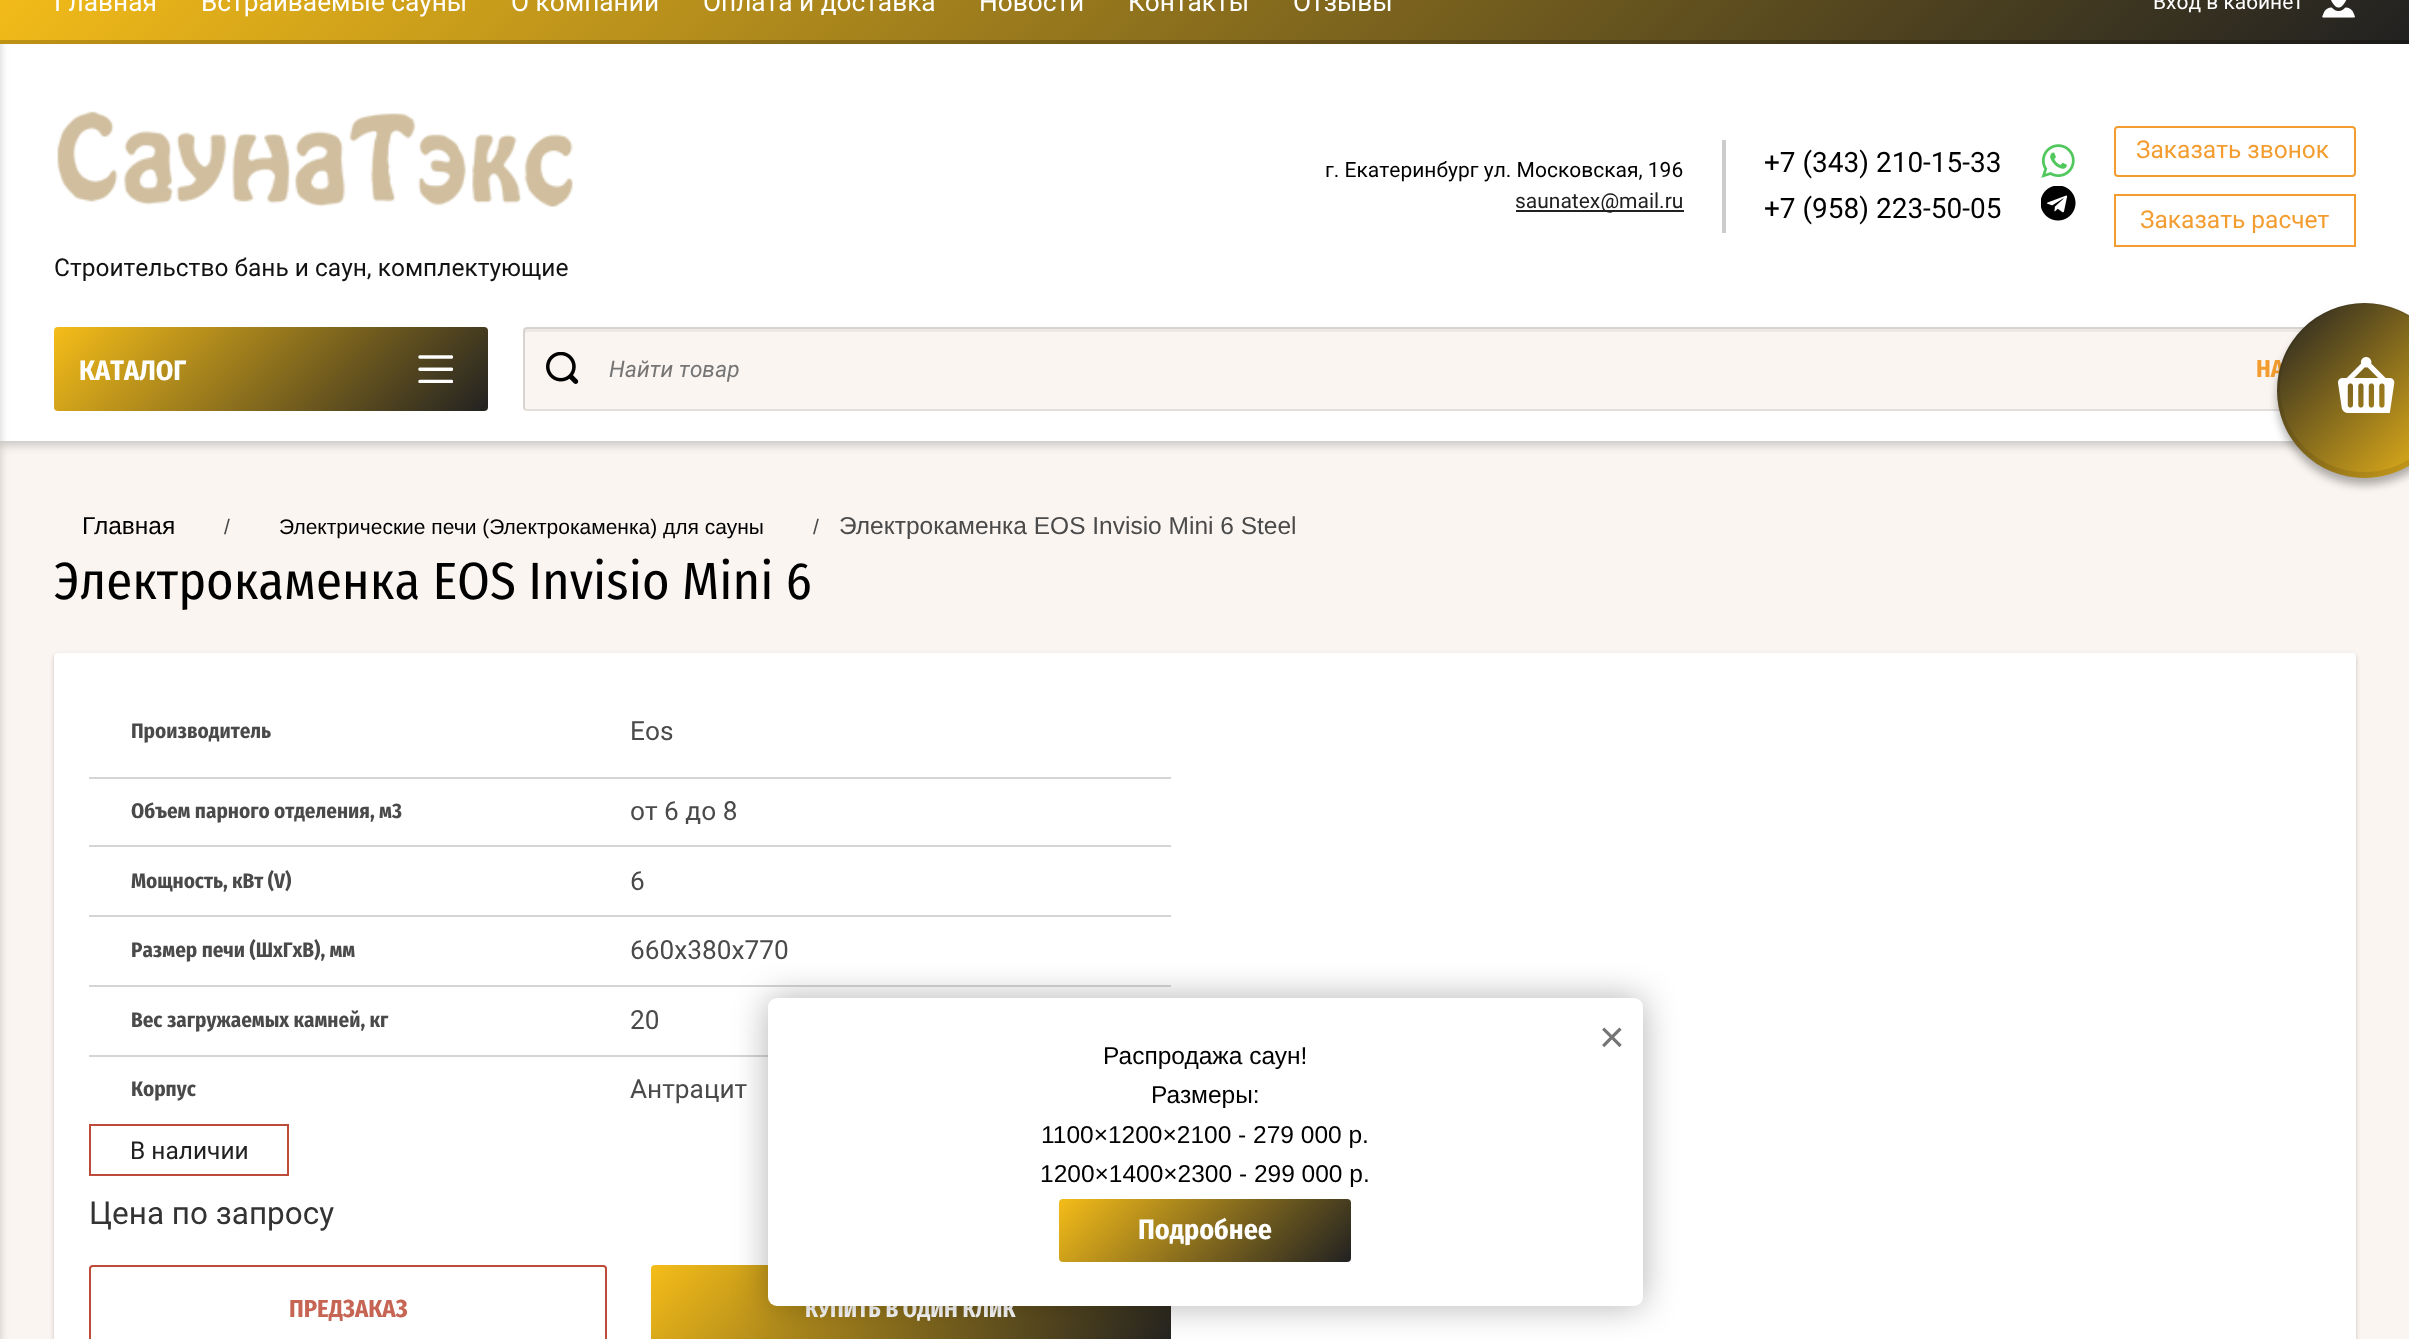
<svg xmlns="http://www.w3.org/2000/svg" width="2409" height="1339" viewBox="0 0 2409 1339">
  <style>
    .t1 { font: 26.25px Roboto; fill: #fff; }
    .t2 { font: 21px Roboto; fill: #fff; }
    .t3 { font: 21px Roboto; fill: #000; }
    .t4 { font: 21px Roboto; fill: #212121; }
    .t5 { font: 28px Roboto; fill: #000; }
    .t6 { font: 24.5px Roboto; fill: #f39d31; }
    .t7 { font: 24.5px Roboto; fill: #121212; }
    .t8 { font: bold 28px Fira Sans Condensed; fill: #fff; }
    .t9 { font: italic 22.75px Roboto; fill: #757575; }
    .t10 { font: bold 24.5px Fira Sans Condensed; fill: #f39d31; }
    .t11 { font: 24.5px Liberation Sans; fill: #000; }
    .t12 { font: 21px Liberation Sans; fill: #4a4a4a; }
    .t13 { font: 21px Liberation Sans; fill: #000; }
    .t14 { font: 24.5px Liberation Sans; fill: #4a4a4a; }
    .t15 { font: 52.5px Fira Sans Condensed; fill: #000; }
    .t16 { font: bold 21px Fira Sans Condensed; fill: #4a4a4a; }
    .t17 { font: 26.25px Roboto; fill: #4a4a4a; }
    .t18 { font: 24.5px Roboto; fill: #212121; }
    .t19 { font: 31.5px Roboto; fill: #333; }
    .t20 { font: bold 24.5px Fira Sans Condensed; fill: #c66554; }
    .t21 { font: bold 22.75px Fira Sans Condensed; fill: #fff; }
    .t22 { font: 44px Liberation Sans; fill: #757575; }
  </style>
  <defs>
    <linearGradient id="g1" gradientUnits="userSpaceOnUse" x1="583" y1="-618" x2="1827" y2="627"><stop offset="0" stop-color="#f5bd19"/><stop offset="1" stop-color="#212121"/></linearGradient>
    <linearGradient id="g2" gradientUnits="userSpaceOnUse" x1="142" y1="240" x2="401" y2="499"><stop offset="0" stop-color="#f5bd19"/><stop offset="1" stop-color="#212121"/></linearGradient>
    <linearGradient id="g3" gradientUnits="userSpaceOnUse" x1="760" y1="1156" x2="1062" y2="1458"><stop offset="0" stop-color="#f5bd19"/><stop offset="1" stop-color="#212121"/></linearGradient>
    <linearGradient id="g4" gradientUnits="userSpaceOnUse" x1="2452" y1="478" x2="2277" y2="303"><stop offset="0" stop-color="#f5bd19"/><stop offset="1" stop-color="#212121"/></linearGradient>
    <linearGradient id="g5" gradientUnits="userSpaceOnUse" x1="1116" y1="1141" x2="1294" y2="1319"><stop offset="0" stop-color="#f5bd19"/><stop offset="1" stop-color="#212121"/></linearGradient>
  </defs>
  <rect width="100%" height="100%" fill="#faf5f1"/>
  <rect x="0" y="-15" width="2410" height="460" fill="#00000033" filter="blur(5px)"/>
  <rect x="0" y="44" width="2409" height="397" fill="#fff"/>
  <rect x="-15" y="4" width="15" height="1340" fill="#00000033" filter="blur(5px)"/>
  <rect x="0" y="0" width="2409" height="44" fill="url(#g1)"/>
  <rect x="0" y="40" width="2409" height="4" fill="#00000033"/>
  <text x="54" y="11" class="t1">Главная</text>
  <text x="201" y="11" class="t1">Встраиваемые сауны</text>
  <text x="511" y="11" class="t1">О компании</text>
  <text x="703" y="11" class="t1">Оплата и доставка</text>
  <text x="979" y="11" class="t1">Новости</text>
  <text x="1128" y="11" class="t1">Контакты</text>
  <text x="1293" y="11" class="t1">Отзывы</text>
  <image x="2322" y="0" width="33" height="18" href="images/1.png"/>
  <text x="2153" y="9" class="t2">Вход в кабинет</text>
  <text x="1325" y="177" class="t3">г. Екатеринбург ул. Московская, 196</text>
  <rect x="1516" y="210" width="168" height="2" fill="#212121"/>
  <text x="1515" y="208" class="t4">saunatex@mail.ru</text>
  <rect x="1722" y="140" width="4" height="93" fill="#ccc"/>
  <text x="1764" y="172" class="t5">+7 (343) 210-15-33</text>
  <text x="1764" y="218" class="t5">+7 (958) 223-50-05</text>
  <image x="2041" y="144" width="34" height="34" href="images/2.png"/>
  <image x="2041" y="186" width="35" height="35" href="images/3.png"/>
  <rect x="2115" y="127" width="240" height="49" rx="3" fill="none" stroke="#f39d31" stroke-width="2"/>
  <text x="2136" y="158" class="t6">Заказать звонок</text>
  <rect x="2115" y="195" width="240" height="51" fill="none" stroke="#f39d31" stroke-width="2"/>
  <text x="2140" y="228" class="t6">Заказать расчет</text>
  <image x="57" y="111" width="516" height="96" href="images/4.png"/>
  <text x="54" y="276" class="t7">Строительство бань и саун, комплектующие</text>
  <rect x="54" y="327" width="434" height="84" rx="4" fill="url(#g2)"/>
  <text x="79" y="380" class="t8">КАТАЛОГ</text>
  <image x="418" y="355" width="35" height="28" href="images/5.png"/>
  <rect x="523" y="327" width="1833" height="84" rx="4" fill="#faf5f1"/>
  <rect x="524" y="328" width="1831" height="82" rx="3" fill="none" stroke="#2020201a" stroke-width="2"/>
  <path d="M527 332H2352C2353 332 2354 333 2354 334V410C2355 410 2356 408 2356 407V331C2356 329 2354 327 2352 327H527C525 327 523 329 523 331V407C523 408 524 410 525 410V334C525 333 526 332 527 332Z" fill="#0000000d"/>
  <image x="546" y="352" width="33" height="32" href="images/6.png"/>
  <text x="609" y="377" class="t9">Найти товар</text>
  <text x="2256" y="377" class="t10">НА</text>
  <text x="82" y="534" class="t11">Главная</text>
  <text x="224" y="534" class="t12">/</text>
  <text x="279" y="534" class="t13">Электрические печи (Электрокаменка) для сауны</text>
  <text x="813" y="534" class="t12">/</text>
  <text x="839" y="534" class="t14">Электрокаменка EOS Invisio Mini 6 Steel</text>
  <text x="54" y="599" class="t15">Электрокаменка EOS Invisio Mini 6</text>
  <rect x="54" y="655" width="2302" height="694" rx="4" fill="#00000033" filter="blur(2px)"/>
  <rect x="54" y="653" width="2302" height="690" rx="4" fill="#fff"/>
  <text x="131" y="738" class="t16">Производитель</text>
  <text x="630" y="740" class="t17">Eos</text>
  <rect x="89" y="777" width="1082" height="2" fill="#d5d5d5"/>
  <text x="131" y="818" class="t16">Объем парного отделения, м3</text>
  <text x="630" y="820" class="t17">от 6 до 8</text>
  <rect x="89" y="845" width="1082" height="2" fill="#d5d5d5"/>
  <text x="131" y="888" class="t16">Мощность, кВт (V)</text>
  <text x="630" y="890" class="t17">6</text>
  <rect x="89" y="915" width="1082" height="2" fill="#d5d5d5"/>
  <text x="131" y="957" class="t16">Размер печи (ШхГхВ), мм</text>
  <text x="630" y="959" class="t17">660x380x770</text>
  <rect x="89" y="985" width="1082" height="2" fill="#d5d5d5"/>
  <text x="131" y="1027" class="t16">Вес загружаемых камней, кг</text>
  <text x="630" y="1029" class="t17">20</text>
  <rect x="89" y="1055" width="679" height="2" fill="#d5d5d5"/>
  <text x="131" y="1096" class="t16">Корпус</text>
  <text x="630" y="1098" class="t17">Антрацит</text>
  <rect x="90" y="1125" width="198" height="50" fill="none" stroke="#bc4c39" stroke-width="2"/>
  <text x="130" y="1159" class="t18">В наличии</text>
  <text x="89" y="1224" class="t19">Цена по запросу</text>
  <rect x="90" y="1266" width="516" height="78" rx="3" fill="none" stroke="#bc4c39" stroke-width="2"/>
  <text x="289" y="1317" class="t20">ПРЕДЗАКАЗ</text>
  <rect x="651" y="1265" width="520" height="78" rx="4" fill="url(#g3)"/>
  <text x="805" y="1317" class="t21">КУПИТЬ В ОДИН КЛИК</text>
  <rect x="2277" y="310" width="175" height="175" rx="87.5" fill="#0000004d" filter="blur(4.5px)"/>
  <circle cx="2364.5" cy="390.5" r="87.5" fill="url(#g4)"/>
  <path d="M2364 303C2316 303 2277 342 2277 390C2277 439 2316 478 2364 478C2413 478 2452 439 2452 390C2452 342 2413 303 2364 303ZM2364 304C2318 304 2280 342 2280 388C2280 435 2318 472 2364 472C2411 472 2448 435 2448 388C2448 342 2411 304 2364 304Z" fill="#00000017" fill-rule="evenodd"/>
  <image x="2338" y="357" width="57" height="56" href="images/7.png"/>
  <rect x="768" y="998" width="875" height="308" rx="9" fill="#0000004d" filter="blur(17.5px)"/>
  <rect x="768" y="998" width="875" height="308" rx="9" fill="#fff"/>
  <text x="1599" y="1052" class="t22">×</text>
  <text x="1103" y="1064" class="t11">Распродажа саун!</text>
  <text x="1151" y="1103" class="t11">Размеры:</text>
  <text x="1041" y="1143" class="t11">1100×1200×2100 - 279 000 р.</text>
  <text x="1040" y="1182" class="t11">1200×1400×2300 - 299 000 р.</text>
  <rect x="1059" y="1199" width="292" height="63" rx="4" fill="url(#g5)"/>
  <text x="1138" y="1239" class="t8">Подробнее</text>
</svg>
